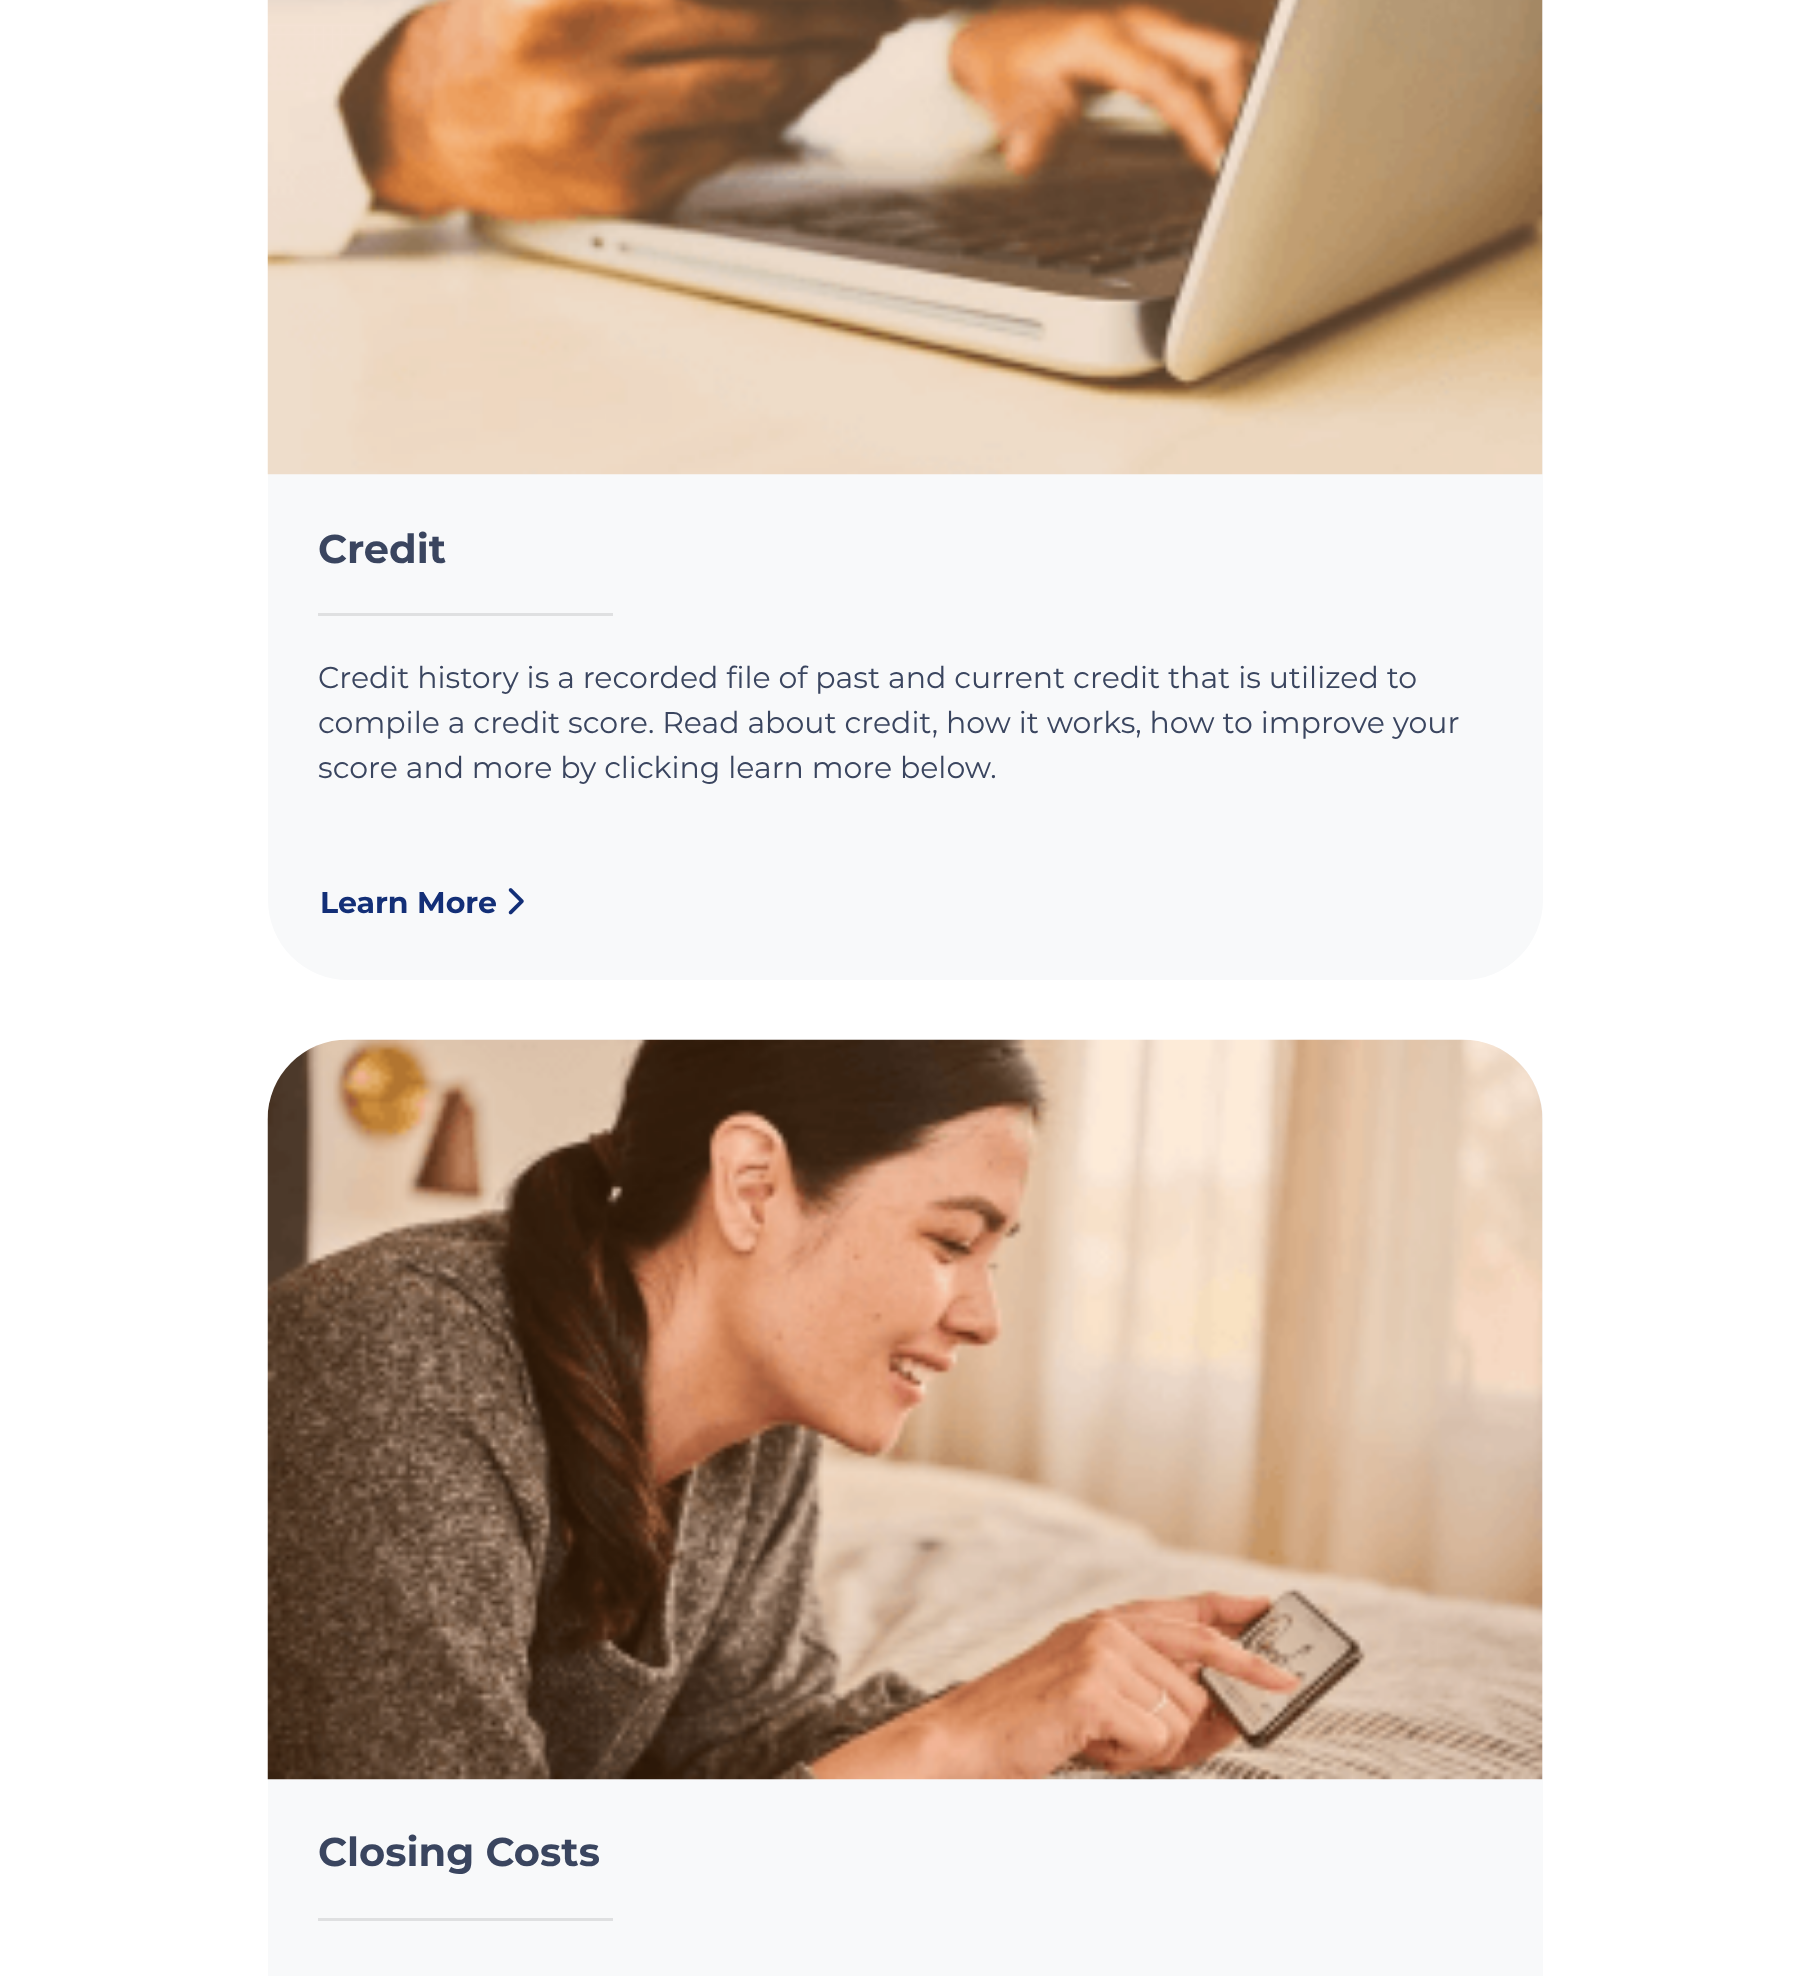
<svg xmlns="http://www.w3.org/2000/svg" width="1810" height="1976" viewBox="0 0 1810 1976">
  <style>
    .t1 { font: bold 40px Montserrat; fill: #3a455f; }
    .t2 { font: 30px Montserrat; fill: #3a455f; }
    .t3 { font: bold 30px Montserrat; fill: #132f77; }
  </style>
  <rect width="100%" height="100%" fill="#fff"/>
  <rect x="268" y="-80" width="1275" height="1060" rx="80" fill="#f8f9fa"/>
  <image x="267" y="0" width="1276" height="475" href="images/1.png"/>
  <text x="318" y="563" class="t1">Credit</text>
  <rect x="318" y="613" width="295" height="3" fill="#dfe0e1"/>
  <text x="318" y="688" class="t2">Credit history is a recorded file of past and current credit that is utilized to</text>
  <text x="318" y="733" class="t2">compile a credit score. Read about credit, how it works, how to improve your</text>
  <text x="318" y="778" class="t2">score and more by clicking learn more below.</text>
  <text x="320" y="913" class="t3">Learn More</text>
  <image x="508" y="888" width="16" height="27" href="images/2.png"/>
  <rect x="268" y="1040" width="1275" height="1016" rx="80" fill="#f8f9fa"/>
  <image x="267" y="1039" width="1276" height="741" href="images/3.png"/>
  <text x="318" y="1866" class="t1">Closing Costs</text>
  <rect x="318" y="1918" width="295" height="3" fill="#dfe0e1"/>
</svg>
